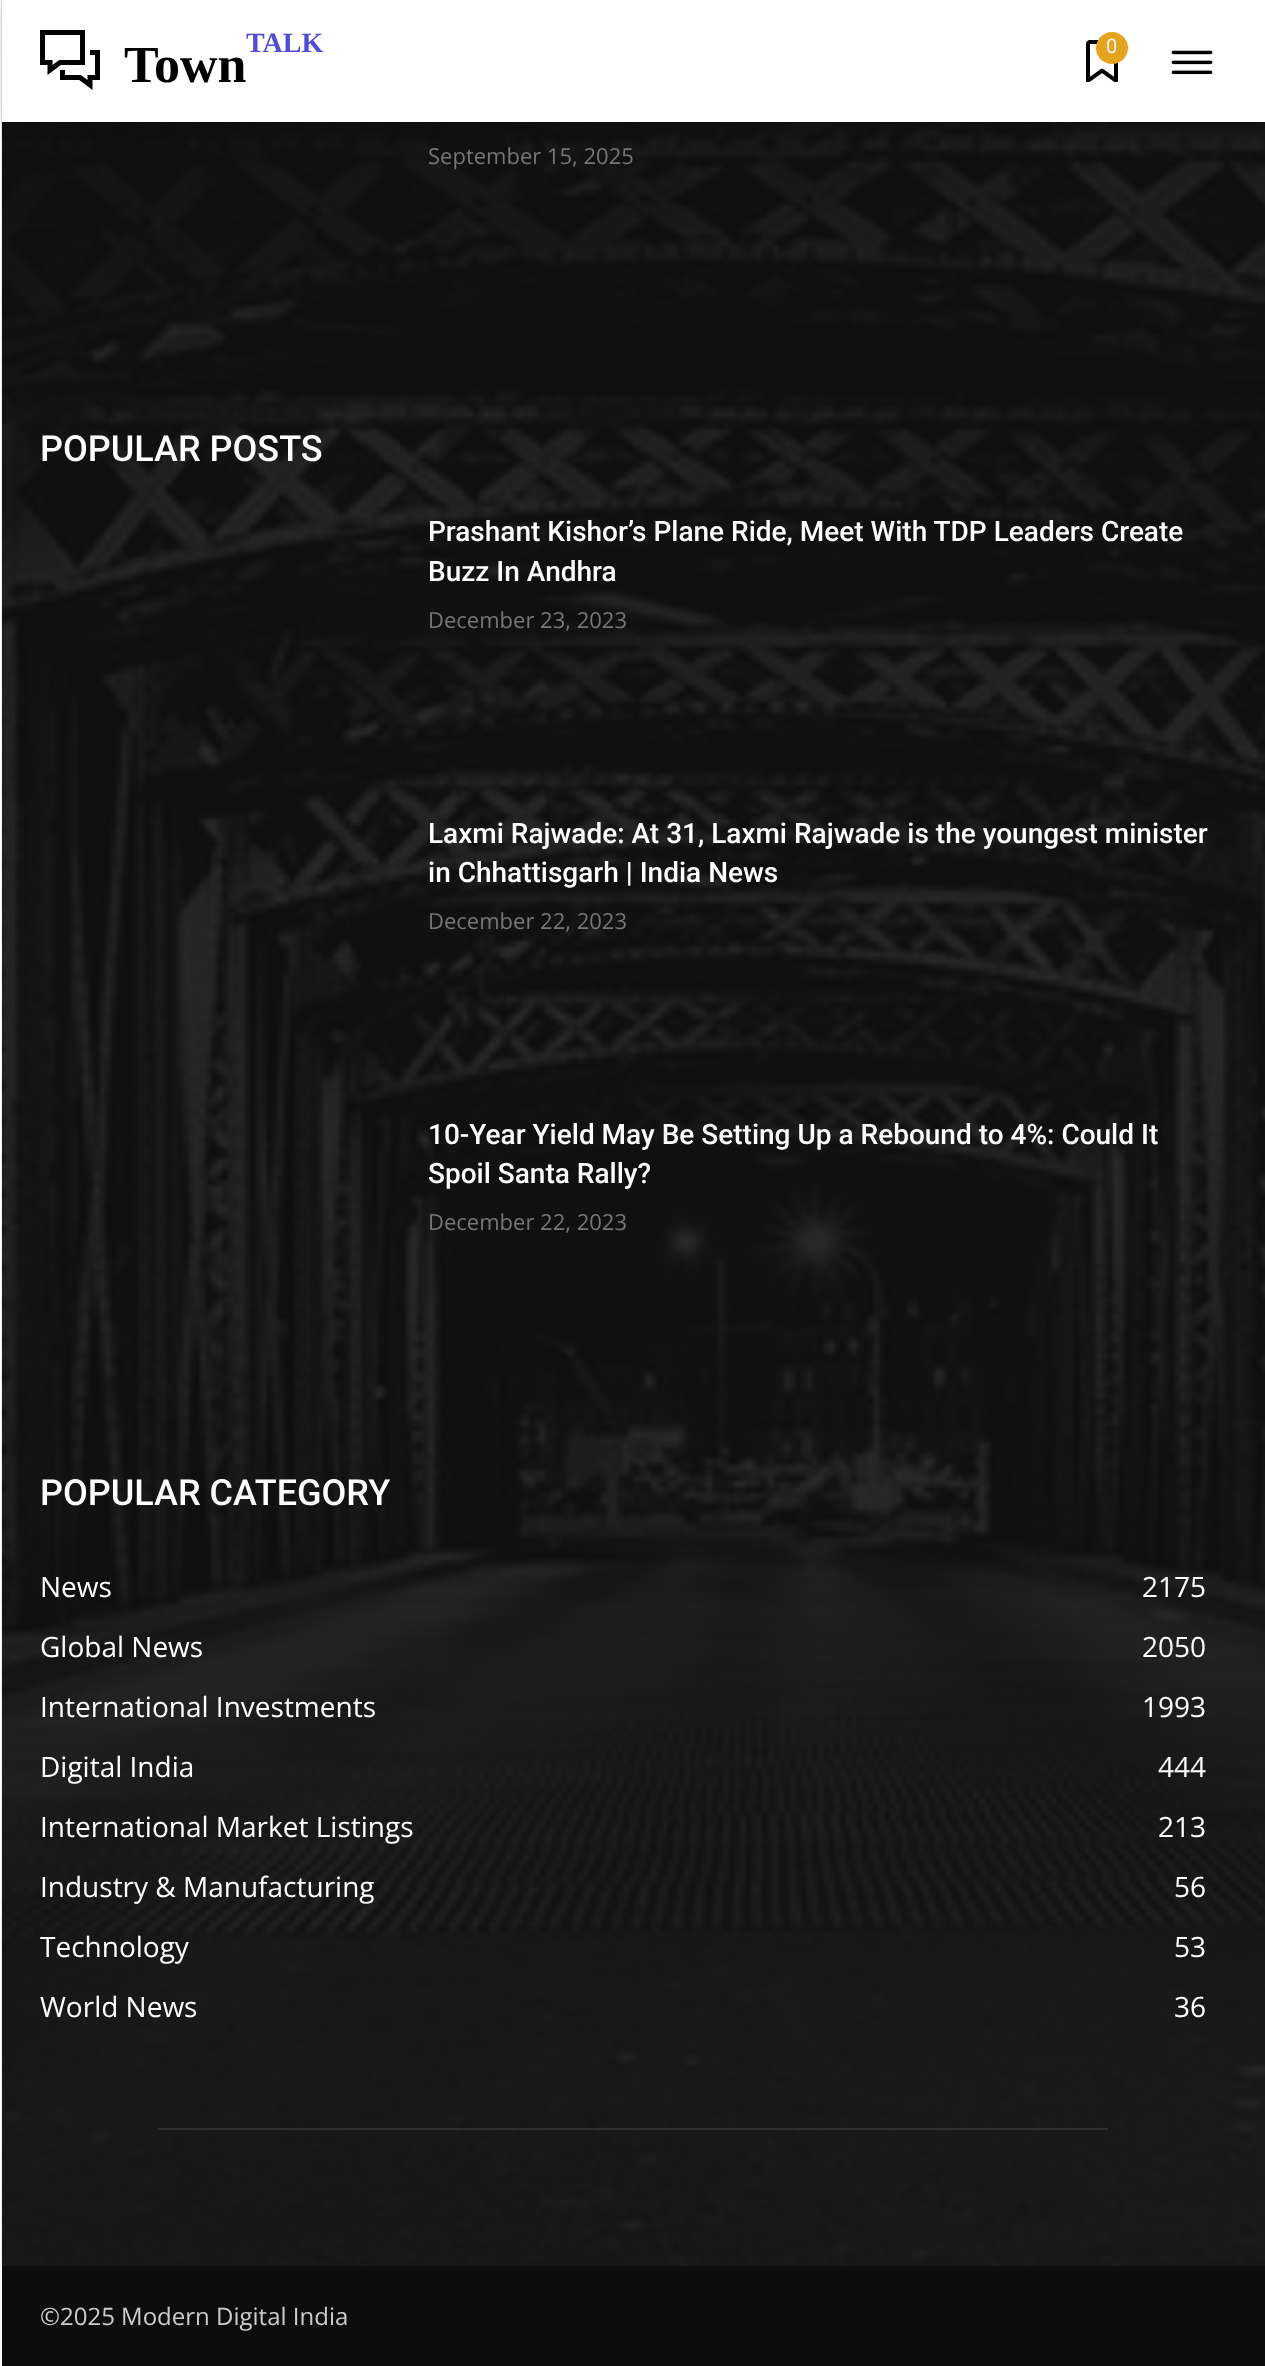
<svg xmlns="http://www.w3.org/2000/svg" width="1265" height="2366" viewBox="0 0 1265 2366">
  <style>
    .t1 { font: bold 28px Liberation Serif; fill: #504bdc; }
    .t2 { font: bold 52px Liberation Serif; fill: #000; }
    .t3 { font: 20px Roboto; fill: #f4f4f4; }
    .t4 { font: 22px Open Sans; fill: #767676; }
    .t5 { font: 500 36px Roboto; fill: #fff; }
    .t6 { font: 500 28px Roboto; fill: #fff; }
    .t7 { font: 28px Open Sans; fill: #fff; }
    .t8 { font: 24px Open Sans; fill: #ccc; }
  </style>
  <defs>
    <clipPath id="clip1"><path d="M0 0H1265V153H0ZM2 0H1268V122H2Z" clip-rule="evenodd"/></clipPath>
  </defs>
  <rect width="100%" height="100%" fill="#fff"/>
  <rect x="2" y="122" width="1263" height="2144" fill="#111"/>
  <image x="1" y="0" width="1264" height="2266" href="images/4.png"/>
  <rect x="2" y="0" width="1263" height="122" fill="#fff"/>
  <image x="40" y="30" width="60" height="60" href="images/1.png"/>
  <image x="1171" y="50" width="42" height="25" href="images/3.png"/>
  <g clip-path="url(#clip1)">
    <rect x="2" y="0" width="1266" height="122" fill="#00000026" filter="blur(10px)"/>
  </g>
  <text x="246" y="52" class="t1">TALK</text>
  <text x="124" y="82" class="t2">Town</text>
  <image x="1086" y="40" width="32" height="42" href="images/2.png"/>
  <circle cx="1112" cy="48" r="16" fill="#e4a41e"/>
  <text x="1106" y="53" class="t3">0</text>
  <text x="428" y="164" class="t4">September 15, 2025</text>
  <text x="40" y="461" class="t5">POPULAR POSTS</text>
  <text x="428" y="541" class="t6">Prashant Kishor’s Plane Ride, Meet With TDP Leaders Create</text>
  <text x="428" y="581" class="t6">Buzz In Andhra</text>
  <text x="428" y="628" class="t4">December 23, 2023</text>
  <text x="428" y="843" class="t6">Laxmi Rajwade: At 31, Laxmi Rajwade is the youngest minister</text>
  <text x="428" y="882" class="t6">in Chhattisgarh | India News</text>
  <text x="428" y="929" class="t4">December 22, 2023</text>
  <text x="428" y="1144" class="t6">10-Year Yield May Be Setting Up a Rebound to 4%: Could It</text>
  <text x="428" y="1183" class="t6">Spoil Santa Rally?</text>
  <text x="428" y="1230" class="t4">December 22, 2023</text>
  <text x="40" y="1505" class="t5">POPULAR CATEGORY</text>
  <text x="40" y="1597" class="t7">News</text>
  <text x="1142" y="1597" class="t7">2175</text>
  <text x="40" y="1657" class="t7">Global News</text>
  <text x="1142" y="1657" class="t7">2050</text>
  <text x="40" y="1717" class="t7">International Investments</text>
  <text x="1142" y="1717" class="t7">1993</text>
  <text x="40" y="1777" class="t7">Digital India</text>
  <text x="1158" y="1777" class="t7">444</text>
  <text x="40" y="1837" class="t7">International Market Listings</text>
  <text x="1158" y="1837" class="t7">213</text>
  <text x="40" y="1897" class="t7">Industry &amp; Manufacturing</text>
  <text x="1174" y="1897" class="t7">56</text>
  <text x="40" y="1957" class="t7">Technology</text>
  <text x="1174" y="1957" class="t7">53</text>
  <text x="40" y="2017" class="t7">World News</text>
  <text x="1174" y="2017" class="t7">36</text>
  <rect x="158" y="2128" width="950" height="2" fill="#ffffff1a"/>
  <rect x="2" y="2266" width="1263" height="100" fill="#0d0d0d"/>
  <text x="40" y="2325" class="t8">©2025 Modern Digital India</text>
</svg>
